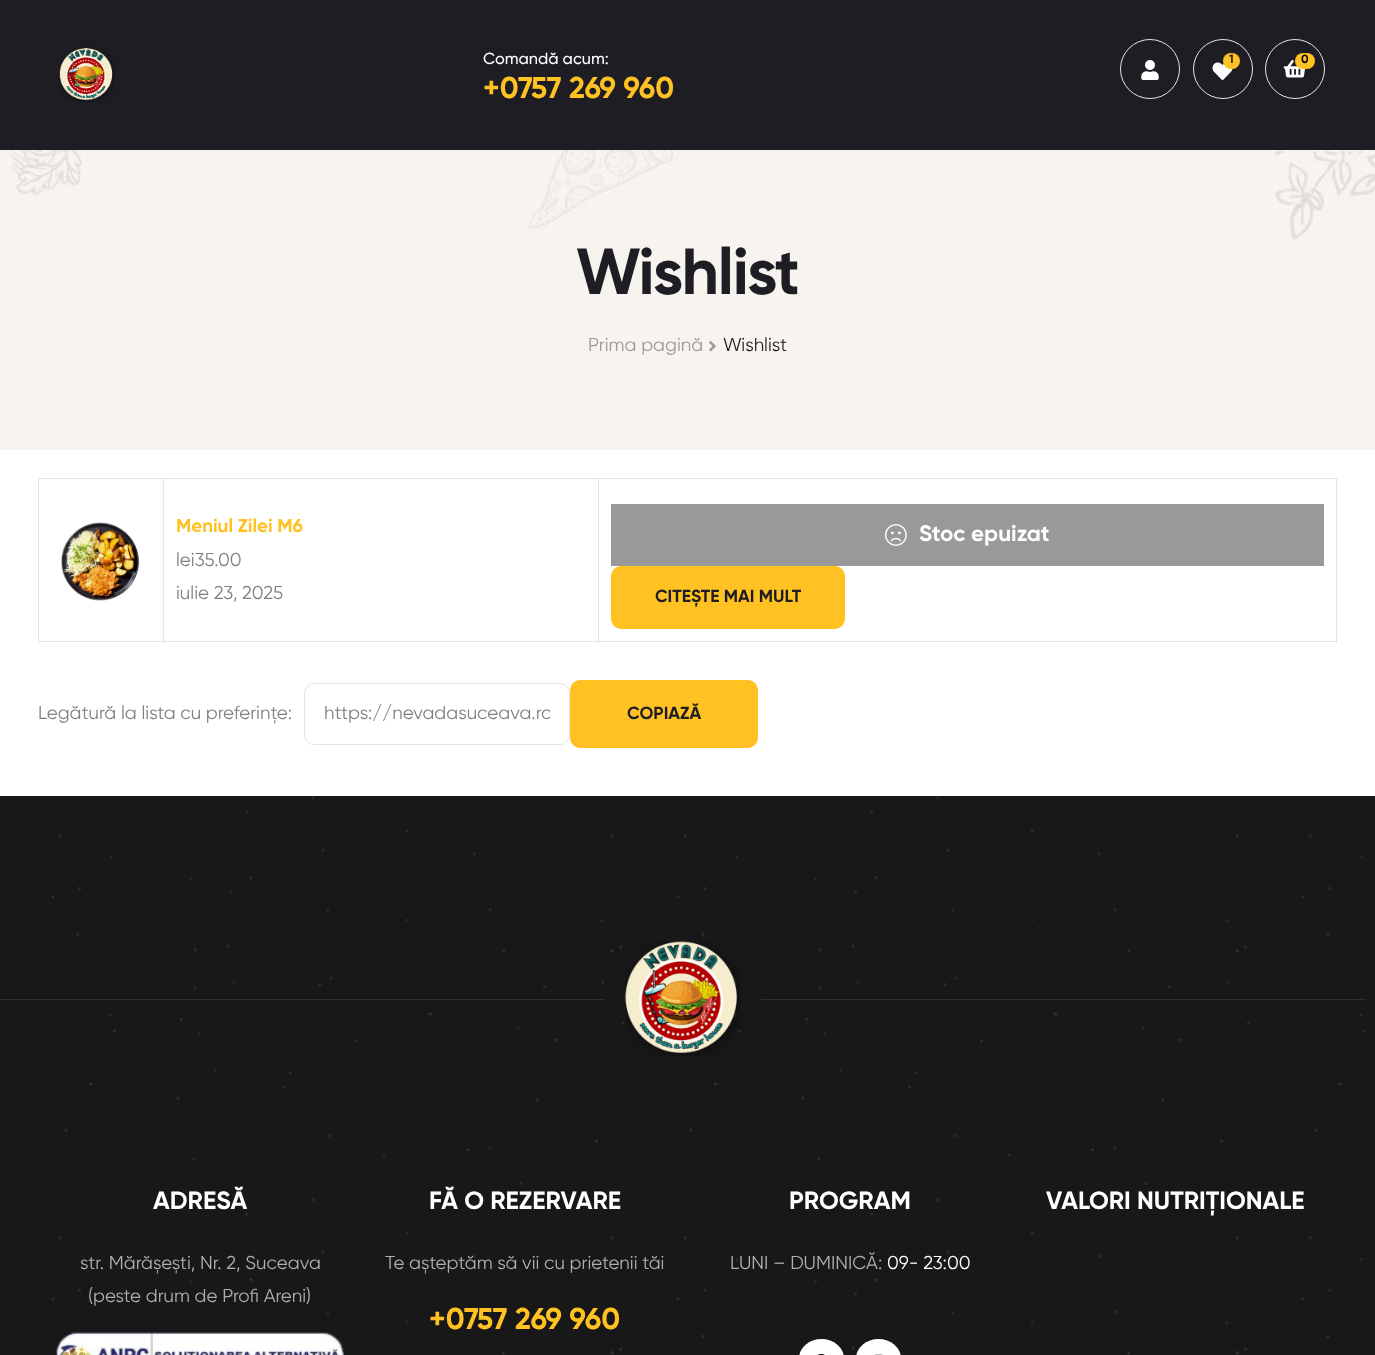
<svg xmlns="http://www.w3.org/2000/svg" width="1375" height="1355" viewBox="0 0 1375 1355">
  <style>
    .t1 { font: 500 16.25px Gilroy; fill: #fff; }
    .t2 { font: bold 30px Gilroy; fill: #ffc222; }
    .t3 { font: bold 12px Gilroy; fill: #1e1d23; }
    .t4 { font: bold 12px Gilroy; fill: #000; }
    .t5 { font: bold 65px Gilroy; letter-spacing: -1.25px; fill: #1e1d23; }
    .t6 { font: 18.75px Gilroy; fill: #999; }
    .t7 { font: 18.75px Gilroy; fill: #1e1d23; }
    .t8 { font: bold 18.75px Gilroy; fill: #ffc222; }
    .t9 { font: 18.75px Gilroy; fill: #808080; }
    .t10 { font: bold 22.5px Gilroy; fill: #fff; }
    .t11 { font: bold 17.5px Gilroy; fill: #1e1d23; }
    .t12 { font: bold 25px Gilroy; fill: #fff; }
    .t13 { font: 18.75px Gilroy; fill: #b0b0b0; }
    .t14 { font: 18.75px Gilroy; fill: #fff; }
  </style>
  <defs>
    <clipPath id="clip1"><rect x="324" y="698" width="226" height="33"/></clipPath>
  </defs>
  <rect width="100%" height="100%" fill="#fff"/>
  <rect x="0" y="0" width="1375" height="150" fill="#1e1d23"/>
  <image x="59" y="47" width="56" height="56" href="images/1.png"/>
  <text x="483" y="64" class="t1">Comandă acum:</text>
  <text x="483" y="98" class="t2">+0757 269 960</text>
  <circle cx="1150" cy="69" r="29.5" fill="none" stroke="#e5e5e5"/>
  <image x="1141" y="60" width="18" height="20" href="images/2.png"/>
  <circle cx="1223" cy="69" r="29.5" fill="none" stroke="#e5e5e5"/>
  <image x="1212" y="62" width="21" height="18" href="images/3.png"/>
  <rect x="1223" y="53" width="17" height="16" rx="8" fill="#ffc222"/>
  <text x="1229" y="63" class="t3">1</text>
  <circle cx="1295" cy="69" r="29.5" fill="none" stroke="#e5e5e5"/>
  <image x="1283" y="60" width="22" height="18" href="images/4.png"/>
  <rect x="1295" y="53" width="20" height="16" rx="8" fill="#ffc222"/>
  <text x="1301" y="63" class="t4">0</text>
  <rect x="0" y="150" width="1375" height="300" fill="#f7f4ef"/>
  <image x="10" y="150" width="1365" height="91" href="images/5.png"/>
  <text x="576" y="294" class="t5">Wishlist</text>
  <text x="588" y="351" class="t6">Prima pagină</text>
  <image x="709" y="341" width="7" height="11" href="images/6.png"/>
  <text x="723" y="351" class="t7">Wishlist</text>
  <rect x="598" y="478" width="740" height="1" fill="#e5e5e5"/>
  <rect x="1336" y="478" width="1" height="165" fill="#e5e5e5"/>
  <rect x="598" y="641" width="740" height="1" fill="#e5e5e5"/>
  <rect x="598" y="478" width="1" height="165" fill="#e5e5e5"/>
  <rect x="163" y="478" width="436" height="1" fill="#e5e5e5"/>
  <rect x="163" y="641" width="436" height="1" fill="#e5e5e5"/>
  <rect x="163" y="478" width="1" height="165" fill="#e5e5e5"/>
  <rect x="38" y="478" width="126" height="1" fill="#e5e5e5"/>
  <rect x="38" y="641" width="126" height="1" fill="#e5e5e5"/>
  <rect x="38" y="478" width="1" height="165" fill="#e5e5e5"/>
  <image x="61" y="522" width="79" height="79" href="images/7.png"/>
  <text x="176" y="532" class="t8">Meniul Zilei M6</text>
  <text x="176" y="566" class="t9">lei35.00</text>
  <text x="176" y="599" class="t9">iulie 23, 2025</text>
  <rect x="611" y="504" width="713" height="62" fill="#999"/>
  <image x="885" y="524" width="22" height="22" href="images/8.png"/>
  <text x="919" y="541" class="t10">Stoc epuizat</text>
  <rect x="611" y="566" width="234" height="63" rx="10" fill="#ffc222"/>
  <text x="655" y="602" class="t11">CITEȘTE MAI MULT</text>
  <text x="38" y="719" class="t9">Legătură la lista cu preferințe:</text>
  <rect x="304.5" y="683.5" width="265" height="61" rx="9.5" fill="none" stroke="#e5e5e5"/>
  <g clip-path="url(#clip1)">
    <text x="324" y="719" class="t9">https://nevadasuceava.ro</text>
  </g>
  <rect x="570" y="680" width="188" height="68" rx="10" fill="#ffc222"/>
  <text x="627" y="719" class="t11">COPIAZĂ</text>
  <rect x="0" y="796" width="1375" height="559" fill="#181818"/>
  <image x="51" y="796" width="1315" height="279" href="images/9.png"/>
  <rect x="0" y="999" width="605" height="1" fill="#303030"/>
  <image x="625" y="941" width="116" height="116" href="images/10.png"/>
  <rect x="761" y="999" width="605" height="1" fill="#303030"/>
  <image x="51" y="1082" width="1312" height="273" href="images/11.png"/>
  <text x="153" y="1209" class="t12">ADRESĂ</text>
  <text x="80" y="1269" class="t13">str. Mărășești, Nr. 2, Suceava</text>
  <text x="88" y="1302" class="t13">(peste drum de Profi Areni)</text>
  <image x="56" y="1332" width="288" height="23" href="images/12.png"/>
  <text x="429" y="1209" class="t12">FĂ O REZERVARE</text>
  <text x="385" y="1269" class="t13">Te așteptăm să vii cu prietenii tăi</text>
  <text x="429" y="1329" class="t2">+0757 269 960</text>
  <text x="789" y="1209" class="t12">PROGRAM</text>
  <text x="730" y="1269" class="t13">LUNI – DUMINICĂ:</text>
  <text x="887" y="1269" class="t14">09- 23:00</text>
  <rect x="799" y="1339" width="45" height="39" rx="22.5" fill="#fff"/>
  <image x="817" y="1354" width="8" height="1" href="images/13.png"/>
  <rect x="856" y="1339" width="45" height="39" rx="22.5" fill="#fff"/>
  <image x="874" y="1354" width="9" height="1" href="images/14.png"/>
  <text x="1046" y="1209" class="t12">VALORI NUTRIȚIONALE</text>
</svg>
